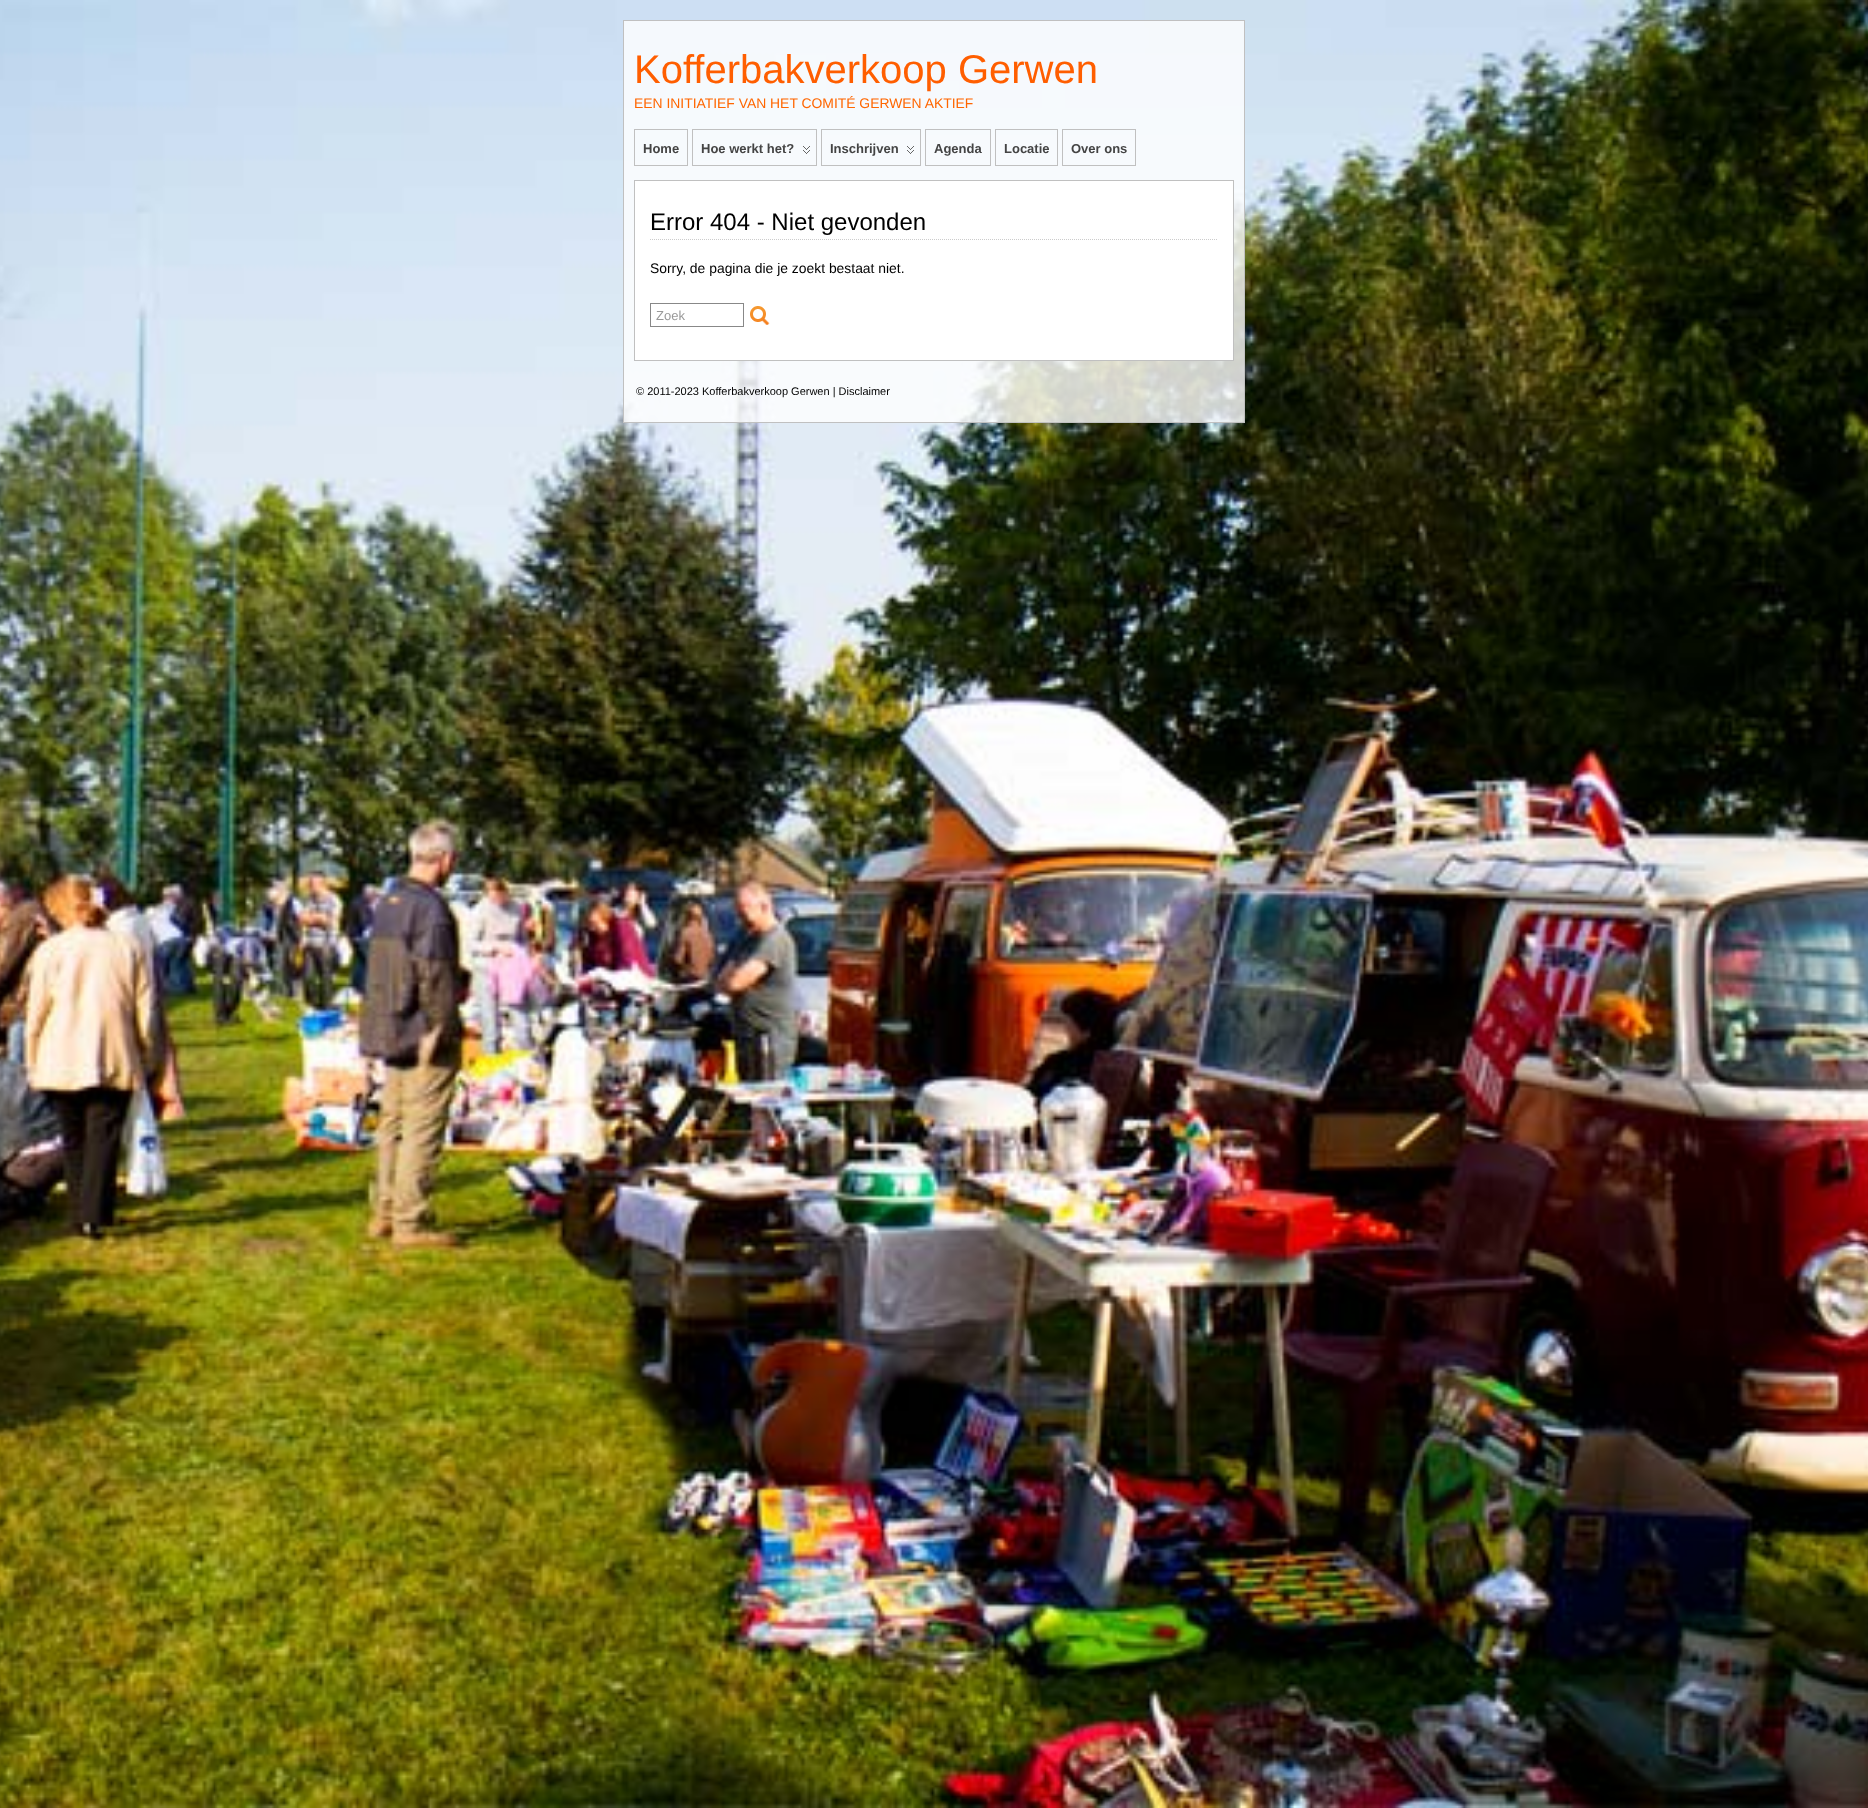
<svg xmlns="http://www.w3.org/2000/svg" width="1868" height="1808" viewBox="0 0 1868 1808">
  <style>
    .t1 { font: 40px Liberation Sans; fill: #ff5e00; }
    .t2 { font: 13.9px Liberation Sans; fill: #f60; }
    .t3 { font: bold 13px Liberation Sans; fill: #444; }
    .t4 { font: 24px Liberation Sans; fill: #000; }
    .t5 { font: 13.9px Liberation Sans; fill: #000; }
    .t6 { font: 13px Liberation Sans; fill: #999; }
    .t7 { font: 11px Liberation Sans; fill: #000; }
  </style>
  <rect width="100%" height="100%" fill="#fff"/>
  <image x="0" y="0" width="1868" height="1808" href="images/1.png"/>
  <rect x="623.5" y="20.5" width="621" height="402" fill="#ffffffcc" stroke="#c0c0c0"/>
  <text x="634" y="83" class="t1">Kofferbakverkoop Gerwen</text>
  <text x="634" y="108" class="t2">EEN INITIATIEF VAN HET COMITÉ GERWEN AKTIEF</text>
  <rect x="634.5" y="129.5" width="53" height="36" fill="none" stroke="#c0c0c0"/>
  <text x="643" y="153" class="t3">Home</text>
  <rect x="692.5" y="129.5" width="124" height="36" fill="none" stroke="#c0c0c0"/>
  <text x="701" y="153" class="t3">Hoe werkt het?</text>
  <image x="803" y="146" width="7" height="8" href="images/2.png"/>
  <rect x="821.5" y="129.5" width="99" height="36" fill="none" stroke="#c0c0c0"/>
  <text x="830" y="153" class="t3">Inschrijven</text>
  <image x="907" y="146" width="7" height="8" href="images/2.png"/>
  <rect x="925.5" y="129.5" width="65" height="36" fill="none" stroke="#c0c0c0"/>
  <text x="934" y="153" class="t3">Agenda</text>
  <rect x="995.5" y="129.5" width="62" height="36" fill="none" stroke="#c0c0c0"/>
  <text x="1004" y="153" class="t3">Locatie</text>
  <rect x="1062.5" y="129.5" width="73" height="36" fill="none" stroke="#c0c0c0"/>
  <text x="1071" y="153" class="t3">Over ons</text>
  <rect x="634.5" y="180.5" width="599" height="180" fill="#fff" stroke="#c0c0c0"/>
  <path d="M650 239.5H1218" fill="none" stroke="#ccc" stroke-dasharray="1 1"/>
  <text x="650" y="230" class="t4">Error 404 - Niet gevonden</text>
  <text x="650" y="273" class="t5">Sorry, de pagina die je zoekt bestaat niet.</text>
  <rect x="650.5" y="303.5" width="93" height="23" fill="none" stroke="#888"/>
  <text x="656" y="320" class="t6">Zoek</text>
  <image x="750" y="306" width="20" height="19" href="images/3.png"/>
  <text x="636" y="395" class="t7">© 2011-2023 Kofferbakverkoop Gerwen | Disclaimer</text>
</svg>
